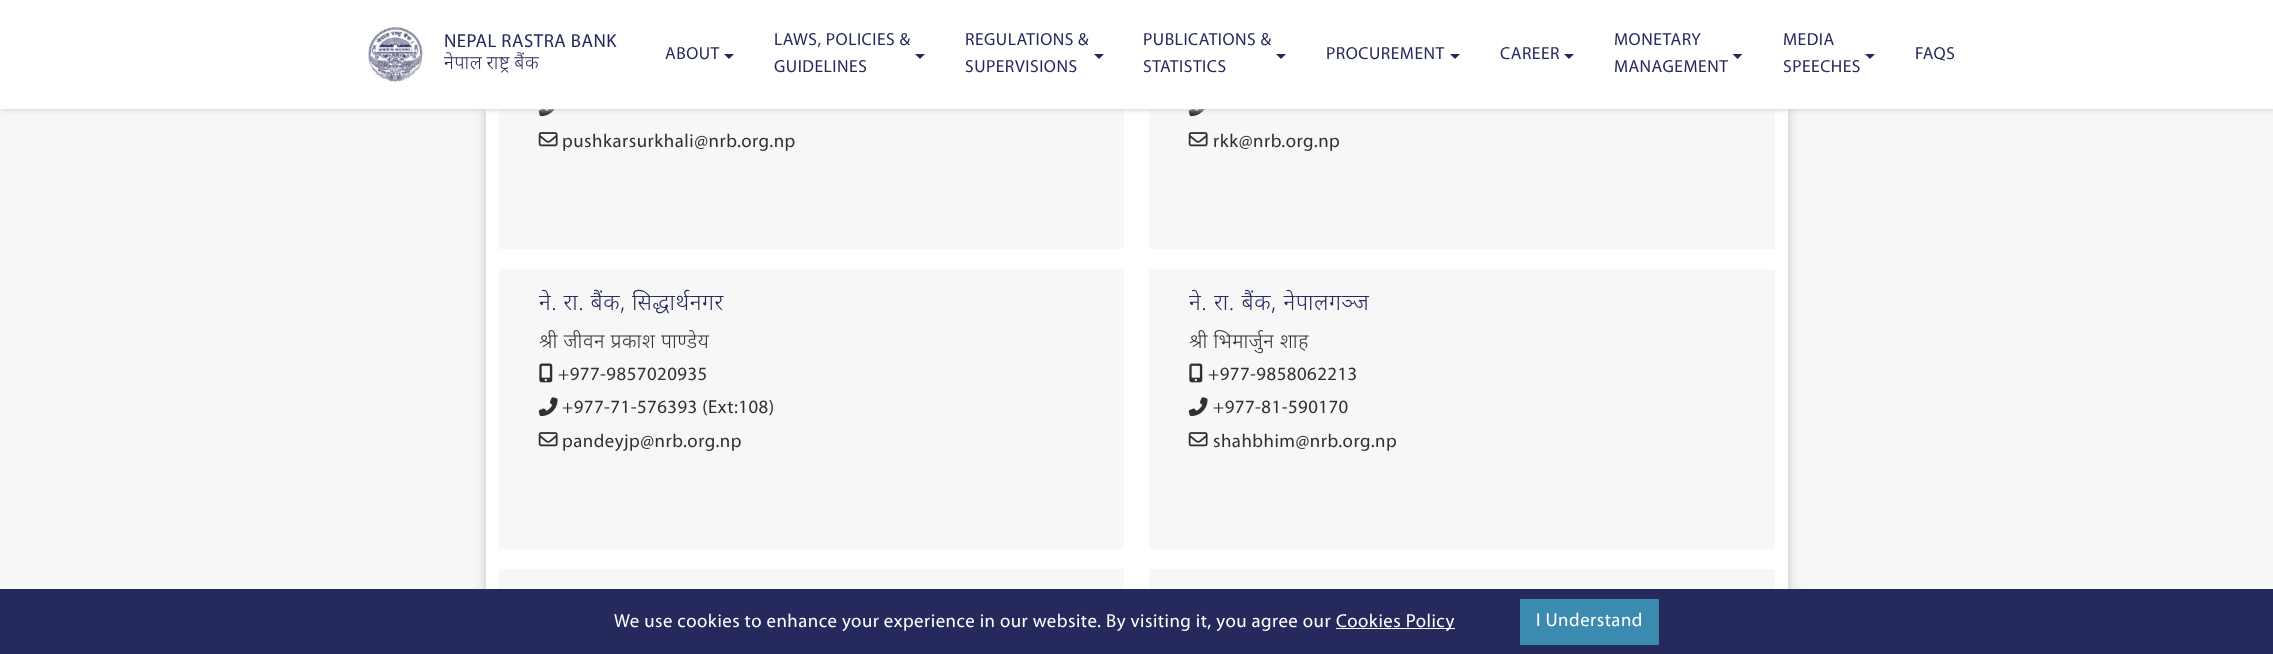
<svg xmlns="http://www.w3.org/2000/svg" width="2273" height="654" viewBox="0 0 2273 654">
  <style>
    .t1 { font: 18.8px Myriad; letter-spacing: 0.5px; fill: #25295b; }
    .t2 { font: 300 18.8px Noto Sans; letter-spacing: 0.5px; fill: #25295b; }
    .t3 { font: 17.5px Myriad; letter-spacing: 0.5px; fill: #25295b; }
    .t4 { font: 18.8px Myriad; letter-spacing: 0.5px; fill: #303030; }
    .t5 { font: 300 22.5px Noto Sans; letter-spacing: 0.5px; fill: #25295b; }
    .t6 { font: 300 20px Noto Sans; letter-spacing: 0.5px; fill: #303030; }
    .t7 { font: 18.8px Myriad; letter-spacing: 0.5px; fill: #fff; }
  </style>
  <rect width="100%" height="100%" fill="#f7f7f7"/>
  <rect x="486" y="-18" width="1302" height="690" fill="#c5c5c5" filter="blur(6px)"/>
  <rect x="486" y="109" width="1302" height="480" fill="#fff"/>
  <rect x="499" y="109" width="625" height="140" fill="#f7f7f7"/>
  <image x="538" y="109" width="17" height="8" href="images/2.png"/>
  <rect x="1149" y="109" width="626" height="140" fill="#f7f7f7"/>
  <image x="1188" y="109" width="17" height="8" href="images/2.png"/>
  <rect x="1" y="1" width="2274" height="109" fill="#d3d3d3" filter="blur(2.5px)"/>
  <rect x="0" y="0" width="2273" height="109" fill="#fff"/>
  <image x="368" y="27" width="56" height="55" href="images/1.png"/>
  <text x="444" y="47" class="t1">NEPAL RASTRA BANK</text>
  <text x="444" y="69" word-spacing="-1" class="t2">नेपाल राष्ट्र बैंक</text>
  <text x="665" y="59" class="t3">ABOUT</text>
  <path d="M724 54H734L729 59Z" fill="#25295b"/>
  <text x="774" y="45" class="t3">LAWS, POLICIES &amp;</text>
  <path d="M915 54H925L920 59Z" fill="#25295b"/>
  <text x="774" y="72" class="t3">GUIDELINES</text>
  <text x="965" y="45" class="t3">REGULATIONS &amp;</text>
  <path d="M1094 54H1104L1099 59Z" fill="#25295b"/>
  <text x="965" y="72" class="t3">SUPERVISIONS</text>
  <text x="1143" y="45" class="t3">PUBLICATIONS &amp;</text>
  <path d="M1276 54H1286L1281 59Z" fill="#25295b"/>
  <text x="1143" y="72" class="t3">STATISTICS</text>
  <text x="1326" y="59" class="t3">PROCUREMENT</text>
  <path d="M1450 54H1460L1455 59Z" fill="#25295b"/>
  <text x="1500" y="59" class="t3">CAREER</text>
  <path d="M1564 54H1574L1569 59Z" fill="#25295b"/>
  <text x="1614" y="45" class="t3">MONETARY</text>
  <path d="M1732.5 54H1742.5L1737.5 59Z" fill="#25295b"/>
  <text x="1614" y="72" class="t3">MANAGEMENT</text>
  <text x="1783" y="45" class="t3">MEDIA</text>
  <path d="M1865 54H1875L1870 59Z" fill="#25295b"/>
  <text x="1783" y="72" class="t3">SPEECHES</text>
  <text x="1915" y="59" class="t3">FAQS</text>
  <image x="538" y="132" width="20" height="15" href="images/3.png"/>
  <text x="562" y="147" class="t4">pushkarsurkhali@nrb.org.np</text>
  <image x="1188" y="132" width="20" height="15" href="images/3.png"/>
  <text x="1213" y="147" class="t4">rkk@nrb.org.np</text>
  <rect x="499" y="269" width="625" height="280" fill="#f7f7f7"/>
  <text x="539" y="310" class="t5">ने. रा. बैंक, सिद्धार्थनगर</text>
  <text x="539" y="348" class="t6">श्री जीवन प्रकाश पाण्डेय</text>
  <image x="539" y="363" width="14" height="20" href="images/4.png"/>
  <text x="558" y="380" class="t4">+977-9857020935</text>
  <image x="538" y="397" width="20" height="20" href="images/5.png"/>
  <text x="562" y="413" class="t4">+977-71-576393 (Ext:108)</text>
  <image x="538" y="432" width="20" height="15" href="images/3.png"/>
  <text x="562" y="447" class="t4">pandeyjp@nrb.org.np</text>
  <rect x="1149" y="269" width="626" height="280" fill="#f7f7f7"/>
  <text x="1189" y="310" word-spacing="0.5" class="t5">ने. रा. बैंक, नेपालगञ्ज</text>
  <text x="1189" y="348" class="t6">श्री भिमार्जुन शाह</text>
  <image x="1189" y="363" width="14" height="20" href="images/4.png"/>
  <text x="1208" y="380" class="t4">+977-9858062213</text>
  <image x="1188" y="397" width="20" height="20" href="images/5.png"/>
  <text x="1213" y="413" class="t4">+977-81-590170</text>
  <image x="1188" y="432" width="20" height="15" href="images/3.png"/>
  <text x="1213" y="447" class="t4">shahbhim@nrb.org.np</text>
  <rect x="499" y="569" width="625" height="20" fill="#f7f7f7"/>
  <rect x="1149" y="569" width="626" height="20" fill="#f7f7f7"/>
  <rect x="0" y="589" width="2273" height="65" fill="#25295b"/>
  <text x="614" y="627" class="t7">We use cookies to enhance your experience in our website. By visiting it, you agree our</text>
  <rect x="1336" y="628" width="119" height="1" fill="#fff"/>
  <text x="1336" y="627" class="t7">Cookies Policy</text>
  <rect x="1520" y="599" width="139" height="46" fill="#3b8aaf"/>
  <text x="1536" y="626" class="t7">I Understand</text>
</svg>
